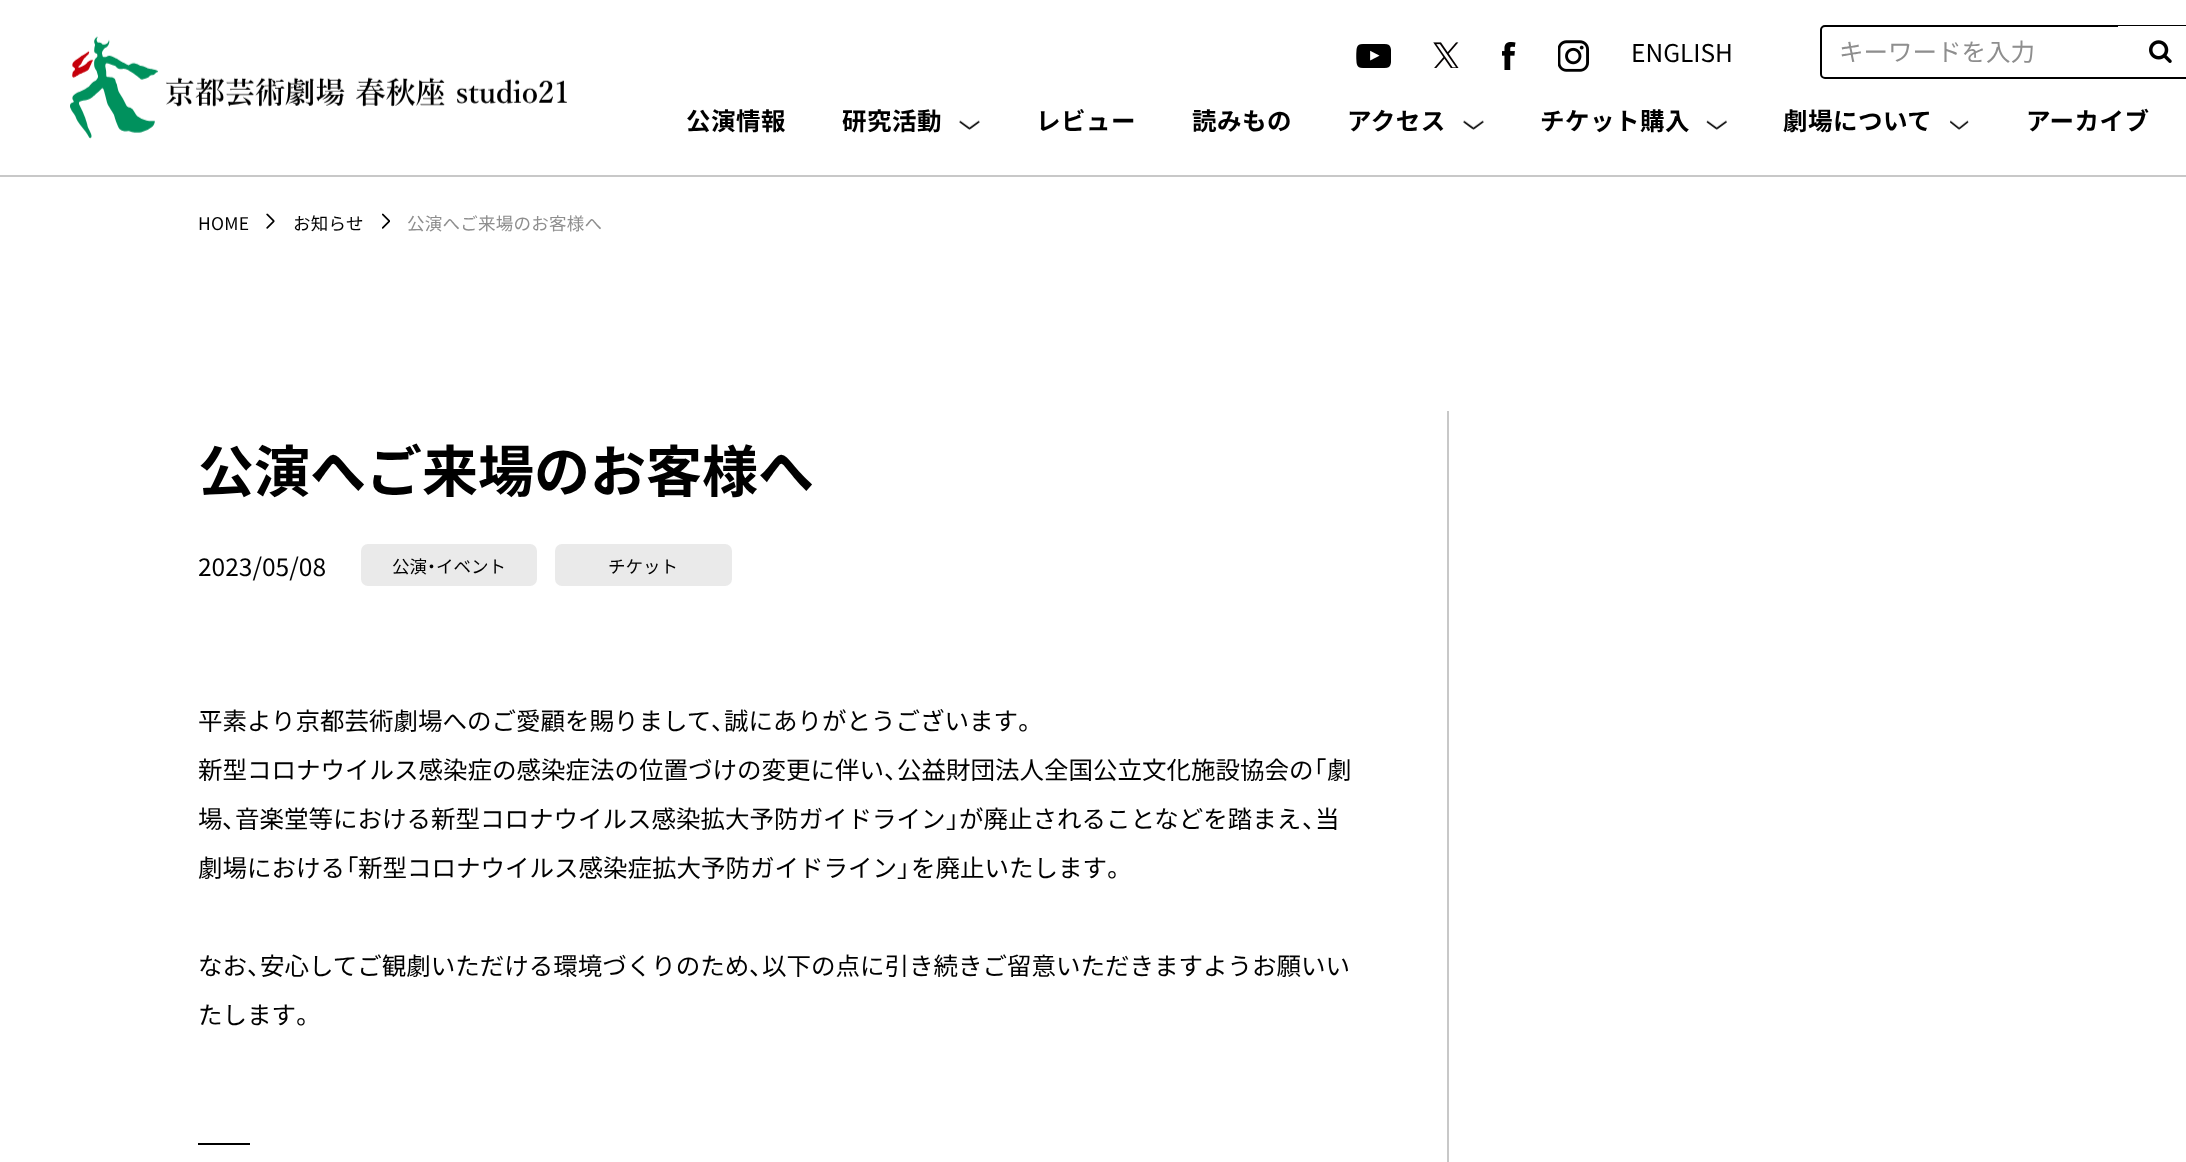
<svg xmlns="http://www.w3.org/2000/svg" width="2186" height="1162" viewBox="0 0 2186 1162">
  <style>
    .t1 { font: 24.5px Noto Sans JP; fill: #000; }
    .t2 { font: 24.5px Noto Sans JP; fill: #8e8e8e; }
    .t3 { font: bold 24.5px Noto Sans JP; letter-spacing: 0.5px; fill: #000; }
    .t4 { font: 17.5px Noto Sans JP; letter-spacing: 0.25px; fill: #000; }
    .t5 { font: 17.5px Noto Sans JP; letter-spacing: 0.25px; fill: #8e8e8e; }
    .t6 { font: bold 56px Noto Sans JP; fill: #000; }
    .t7 { font: 17.5px Noto Sans JP; fill: #000; }
    .t8 { font: 17.5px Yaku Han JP; fill: #000; }
    .t9 { font: 24.5px Yaku Han JP; fill: #000; }
  </style>
  <rect width="100%" height="100%" fill="#fff"/>
  <rect x="0" y="175" width="2186" height="2" fill="#c8c8c8"/>
  <image x="70" y="36" width="497" height="103" href="images/1.png"/>
  <image x="1356" y="44" width="35" height="24" href="images/2.png"/>
  <image x="1433" y="42" width="26" height="26" href="images/3.png"/>
  <image x="1502" y="42" width="14" height="28" href="images/4.png"/>
  <image x="1558" y="40" width="31" height="32" href="images/5.png"/>
  <text x="1631" y="62" class="t1">ENGLISH</text>
  <rect x="1821" y="26" width="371" height="52" rx="4" fill="none" stroke="#000" stroke-width="2"/>
  <text x="1839" y="61" class="t2">キーワードを入力</text>
  <rect x="2118" y="26" width="68" height="1" fill="#fff"/>
  <image x="2149" y="40" width="23" height="23" href="images/6.png"/>
  <text x="686" y="130" class="t3">公演情報</text>
  <text x="842" y="130" class="t3">研究活動</text>
  <image x="959" y="120" width="21" height="10" href="images/7.png"/>
  <text x="1036" y="130" class="t3">レビュー</text>
  <text x="1192" y="130" class="t3">読みもの</text>
  <text x="1347" y="130" class="t3">アクセス</text>
  <image x="1463" y="120" width="21" height="10" href="images/8.png"/>
  <text x="1540" y="130" class="t3">チケット購入</text>
  <image x="1706" y="120" width="21" height="10" href="images/9.png"/>
  <text x="1783" y="130" class="t3">劇場について</text>
  <image x="1950" y="120" width="19" height="10" href="images/10.png"/>
  <text x="2026" y="130" class="t3">アーカイブ</text>
  <text x="198" y="230" class="t4">HOME</text>
  <image x="266" y="213" width="9" height="16" href="images/11.png"/>
  <text x="293" y="230" class="t4">お知らせ</text>
  <image x="382" y="213" width="8" height="16" href="images/12.png"/>
  <text x="407" y="230" class="t5">公演へご来場のお客様へ</text>
  <rect x="1447" y="411" width="2" height="751" fill="#c8c8c8"/>
  <text x="198" y="492" class="t6">公演へご来場のお客様へ</text>
  <text x="198" y="576" class="t1">2023/05/08</text>
  <rect x="361" y="544" width="176" height="42" rx="7" fill="#eaeaea"/>
  <text x="392" y="573" class="t7">公演</text>
  <text x="427" y="573" class="t8">・</text>
  <text x="436" y="573" class="t7">イベント</text>
  <rect x="555" y="544" width="177" height="42" rx="7" fill="#eaeaea"/>
  <text x="608" y="573" class="t7">チケット</text>
  <text x="198" y="730" class="t1">平素より京都芸術劇場へのご愛顧を賜りまして</text>
  <text x="711" y="730" class="t9">、</text>
  <text x="724" y="730" class="t1">誠にありがとうございます</text>
  <text x="1018" y="730" class="t9">。</text>
  <text x="198" y="779" class="t1">新型コロナウイルス感染症の感染症法の位置づけの変更に伴い</text>
  <text x="884" y="779" class="t9">、</text>
  <text x="897" y="779" class="t1">公益財団法人全国公立文化施設協会の</text>
  <text x="1313" y="779" class="t9">「</text>
  <text x="1327" y="779" class="t1">劇</text>
  <text x="198" y="828" class="t1">場</text>
  <text x="222" y="828" class="t9">、</text>
  <text x="235" y="828" class="t1">音楽堂等における新型コロナウイルス感染拡大予防ガイドライン</text>
  <text x="946" y="828" class="t9">」</text>
  <text x="959" y="828" class="t1">が廃止されることなどを踏まえ</text>
  <text x="1302" y="828" class="t9">、</text>
  <text x="1315" y="828" class="t1">当</text>
  <text x="198" y="877" class="t1">劇場における</text>
  <text x="345" y="877" class="t9">「</text>
  <text x="358" y="877" class="t1">新型コロナウイルス感染症拡大予防ガイドライン</text>
  <text x="897" y="877" class="t9">」</text>
  <text x="911" y="877" class="t1">を廃止いたします</text>
  <text x="1107" y="877" class="t9">。</text>
  <text x="198" y="975" class="t1">なお</text>
  <text x="247" y="975" class="t9">、</text>
  <text x="260" y="975" class="t1">安心してご観劇いただける環境づくりのため</text>
  <text x="749" y="975" class="t9">、</text>
  <text x="762" y="975" class="t1">以下の点に引き続きご留意いただきますようお願いい</text>
  <text x="198" y="1024" class="t1">たします</text>
  <text x="296" y="1024" class="t9">。</text>
  <rect x="198" y="1143" width="52" height="2" fill="#000"/>
</svg>
